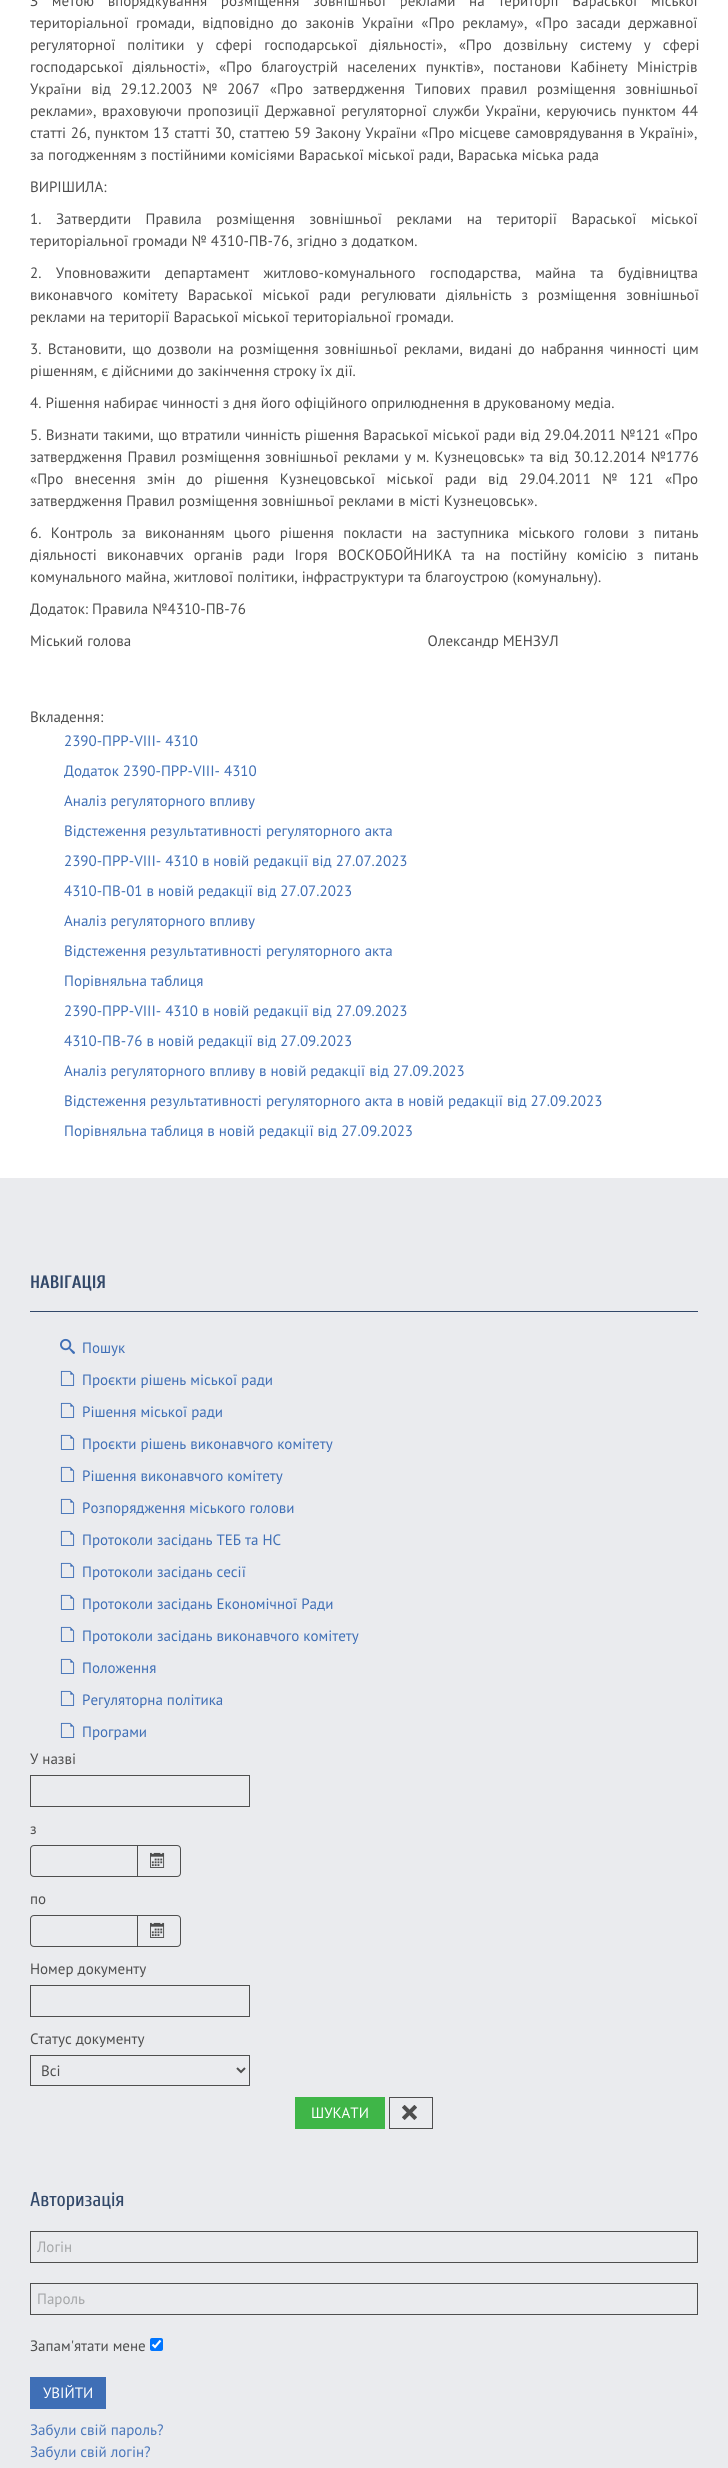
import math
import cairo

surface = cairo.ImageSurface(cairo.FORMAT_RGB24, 728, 2468)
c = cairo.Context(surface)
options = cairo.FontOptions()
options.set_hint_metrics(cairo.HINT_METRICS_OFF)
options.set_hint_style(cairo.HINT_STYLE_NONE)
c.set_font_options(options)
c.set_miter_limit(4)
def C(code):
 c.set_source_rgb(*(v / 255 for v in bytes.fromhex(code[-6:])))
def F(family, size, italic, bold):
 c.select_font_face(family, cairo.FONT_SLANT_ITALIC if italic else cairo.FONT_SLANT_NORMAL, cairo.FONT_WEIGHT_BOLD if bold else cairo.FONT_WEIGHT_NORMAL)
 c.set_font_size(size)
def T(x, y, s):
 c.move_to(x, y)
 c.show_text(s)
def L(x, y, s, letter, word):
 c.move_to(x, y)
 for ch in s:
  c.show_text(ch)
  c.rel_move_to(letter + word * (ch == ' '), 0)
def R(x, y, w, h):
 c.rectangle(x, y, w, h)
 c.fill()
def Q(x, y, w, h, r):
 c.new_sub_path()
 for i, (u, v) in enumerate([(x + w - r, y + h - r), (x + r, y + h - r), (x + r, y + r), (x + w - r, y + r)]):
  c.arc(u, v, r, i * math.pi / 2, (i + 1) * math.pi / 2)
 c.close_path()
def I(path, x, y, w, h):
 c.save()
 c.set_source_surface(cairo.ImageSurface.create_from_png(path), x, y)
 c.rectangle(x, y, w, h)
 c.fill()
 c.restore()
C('ffffff')
c.paint()
F('PT Sans',15,0,0)
C('4e4e4e')
L(30,6,'З метою впорядкування розміщення зовнішньої реклами на території Вараської міської',0,9.75)
L(30,28,'територіальної громади, відповідно до законів України «Про рекламу», «Про засади державної',0,3.75)
L(30,50,'регуляторної політики у сфері господарської діяльності», «Про дозвільну систему у сфері',0,8)
L(30,72,'господарської діяльності», «Про благоустрій населених пунктів», постанови Кабінету Міністрів',0,5.25)
L(30,94,'України від 29.12.2003 № 2067 «Про затвердження Типових правил розміщення зовнішньої',0,5.75)
L(30,116,'реклами», враховуючи пропозиції Державної регуляторної служби України, керуючись пунктом 44',0,1.75)
L(30,138,'статті 26, пунктом 13 статті 30, статтею 59 Закону України «Про місцеве самоврядування в Україні»,',0,.5)
T(30,160,'за погодженням з постійними комісіями Вараської міської ради, Вараська міська рада')
T(30,192,'ВИРІШИЛА:')
L(30,224,'1. Затвердити Правила розміщення зовнішньої реклами на території Вараської міської',0,10.5)
T(30,246,'територіальної громади № 4310-ПВ-76, згідно з додатком.')
L(30,278,'2. Уповноважити департамент житлово-комунального господарства, майна та будівництва',0,10.25)
L(30,300,'виконавчого комітету Вараської міської ради регулювати діяльність з розміщення зовнішньої',0,5.75)
T(30,322,'реклами на території Вараської міської територіальної громади.')
L(30,354,'3. Встановити, що дозволи на розміщення зовнішньої реклами, видані до набрання чинності цим',0,2.25)
T(30,376,'рішенням, є дійсними до закінчення строку їх дії.')
T(30,408,'4. Рішення набирає чинності з дня його офіційного оприлюднення в друкованому медіа.')
L(30,440,'5. Визнати такими, що втратили чинність рішення Вараської міської ради від 29.04.2011 №121 «Про',0,.4)
L(30,462,'затвердження Правил розміщення зовнішньої реклами у м. Кузнецовськ» та від 30.12.2014 №1776',0,1.25)
L(30,484,'«Про внесення змін до рішення Кузнецовської міської ради від 29.04.2011 № 121 «Про',0,7.4)
T(30,506,'затвердження Правил розміщення зовнішньої реклами в місті Кузнецовськ».')
L(30,538,'6. Контроль за виконанням цього рішення покласти на заступника міського голови з питань',0,5.25)
L(30,560,'діяльності виконавчих органів ради Ігоря ВОСКОБОЙНИКА та на постійну комісію з питань',0,6)
T(30,582,'комунального майна, житлової політики, інфраструктури та благоустрою (комунальну).')
T(30,614,'Додаток: Правила №4310-ПВ-76')
T(30,646,'Міський голова                                                                          Олександр МЕНЗУЛ')
T(30,722,'Вкладення:')
C('3f6fb6')
T(64,746,'2390-ПРР-VIII- 4310')
T(64,776,'Додаток 2390-ПРР-VIII- 4310')
T(64,806,'Аналіз регуляторного впливу')
T(64,836,'Відстеження результативності регуляторного акта')
T(64,866,'2390-ПРР-VIII- 4310 в новій редакції від 27.07.2023')
T(64,896,'4310-ПВ-01 в новій редакції від 27.07.2023')
T(64,926,'Аналіз регуляторного впливу')
T(64,956,'Відстеження результативності регуляторного акта')
T(64,986,'Порівняльна таблиця')
T(64,1016,'2390-ПРР-VIII- 4310 в новій редакції від 27.09.2023')
T(64,1046,'4310-ПВ-76 в новій редакції від 27.09.2023')
T(64,1076,'Аналіз регуляторного впливу в новій редакції від 27.09.2023')
T(64,1106,'Відстеження результативності регуляторного акта в новій редакції від 27.09.2023')
T(64,1136,'Порівняльна таблиця в новій редакції від 27.09.2023')
C('eaebee')
R(0,1178,728,1290)
C('324869')
R(30,1311,668,1)
F('Cuprum',18,0,1)
T(30,1288,'НАВІГАЦІЯ')
I('1.png',60,1338,15,16)
F('PT Sans',15,0,0)
C('3f6fb6')
T(82,1353,'Пошук')
I('2.png',60,1370,15,16)
T(82,1385,'Проєкти рішень міської ради')
I('2.png',60,1402,15,16)
T(82,1417,'Рішення міської ради')
I('2.png',60,1434,15,16)
T(82,1449,'Проєкти рішень виконавчого комітету')
I('2.png',60,1466,15,16)
T(82,1481,'Рішення виконавчого комітету')
I('2.png',60,1498,15,16)
T(82,1513,'Розпорядження міського голови')
I('2.png',60,1530,15,16)
T(82,1545,'Протоколи засідань ТЕБ та НС')
I('2.png',60,1562,15,16)
T(82,1577,'Протоколи засідань сесії')
I('2.png',60,1594,15,16)
T(82,1609,'Протоколи засідань Економічної Ради')
I('2.png',60,1626,15,16)
T(82,1641,'Протоколи засідань виконавчого комітету')
I('2.png',60,1658,15,16)
T(82,1673,'Положення')
I('2.png',60,1690,15,16)
T(82,1705,'Регуляторна політика')
I('2.png',60,1722,15,16)
T(82,1737,'Програми')
C('4e4e4e')
T(30,1764,'У назві')
c.rectangle(30.5,1775.5,219,31)
c.set_line_width(1)
c.stroke()
T(30,1834,'з')
c.new_path()
c.move_to(34,1845.5)
c.line_to(137.5,1845.5)
c.line_to(137.5,1876.5)
c.line_to(34,1876.5)
c.curve_to(32,1876.5,30.5,1875,30.5,1873)
c.line_to(30.5,1849)
c.curve_to(30.5,1847,32,1845.5,34,1845.5)
c.close_path()
c.stroke()
c.new_path()
c.move_to(137.5,1845.5)
c.line_to(177,1845.5)
c.curve_to(179,1845.5,180.5,1847,180.5,1849)
c.line_to(180.5,1873)
c.curve_to(180.5,1875,179,1876.5,177,1876.5)
c.line_to(137.5,1876.5)
c.close_path()
c.stroke()
I('3.png',150,1852,15,16)
T(30,1904,'по')
c.new_path()
c.move_to(34,1915.5)
c.line_to(137.5,1915.5)
c.line_to(137.5,1946.5)
c.line_to(34,1946.5)
c.curve_to(32,1946.5,30.5,1945,30.5,1943)
c.line_to(30.5,1919)
c.curve_to(30.5,1917,32,1915.5,34,1915.5)
c.close_path()
c.stroke()
c.new_path()
c.move_to(137.5,1915.5)
c.line_to(177,1915.5)
c.curve_to(179,1915.5,180.5,1917,180.5,1919)
c.line_to(180.5,1943)
c.curve_to(180.5,1945,179,1946.5,177,1946.5)
c.line_to(137.5,1946.5)
c.close_path()
c.stroke()
I('3.png',150,1922,15,16)
T(30,1974,'Номер документу')
c.rectangle(30.5,1985.5,219,31)
c.stroke()
T(30,2044,'Статус документу')
c.rectangle(30.5,2055.5,219,30)
c.stroke()
c.new_path()
c.move_to(237,2068)
c.line_to(241,2072)
c.line_to(245,2068)
c.set_line_width(2)
c.stroke()
T(41,2076,'Всі')
C('3fb648')
R(295,2097,90,32)
C('ffffff')
T(311,2118,'ШУКАТИ')
c.rectangle(389.5,2097.5,43,31)
C('4e4e4e')
c.set_line_width(1)
c.stroke()
I('4.png',402,2105,15,15)
F('Cuprum',20,0,0)
C('324869')
T(30,2206,'Авторизація')
c.rectangle(30.5,2231.5,667,31)
C('4e4e4e')
c.stroke()
F('PT Sans',15,0,0)
C('a4a6a8')
T(37,2252,'Логін')
c.rectangle(30.5,2283.5,667,31)
C('4e4e4e')
c.stroke()
C('a4a6a8')
T(37,2304,'Пароль')
C('4e4e4e')
T(30,2351,'Запам\'ятати мене')
C('0075ff')
Q(150,2338,13,13,2)
c.fill()
c.new_path()
c.move_to(152.5,2344.5)
c.line_to(155,2347)
c.line_to(160.5,2340.5)
C('ffffff')
c.set_line_width(2.1)
c.stroke()
C('3f6fb6')
R(30,2377,76,32)
C('ffffff')
T(43,2398,'УВІЙТИ')
C('4976ba')
T(30,2435,'Забули свій пароль?')
T(30,2457,'Забули свій логін?')
surface.write_to_png('o.png')
